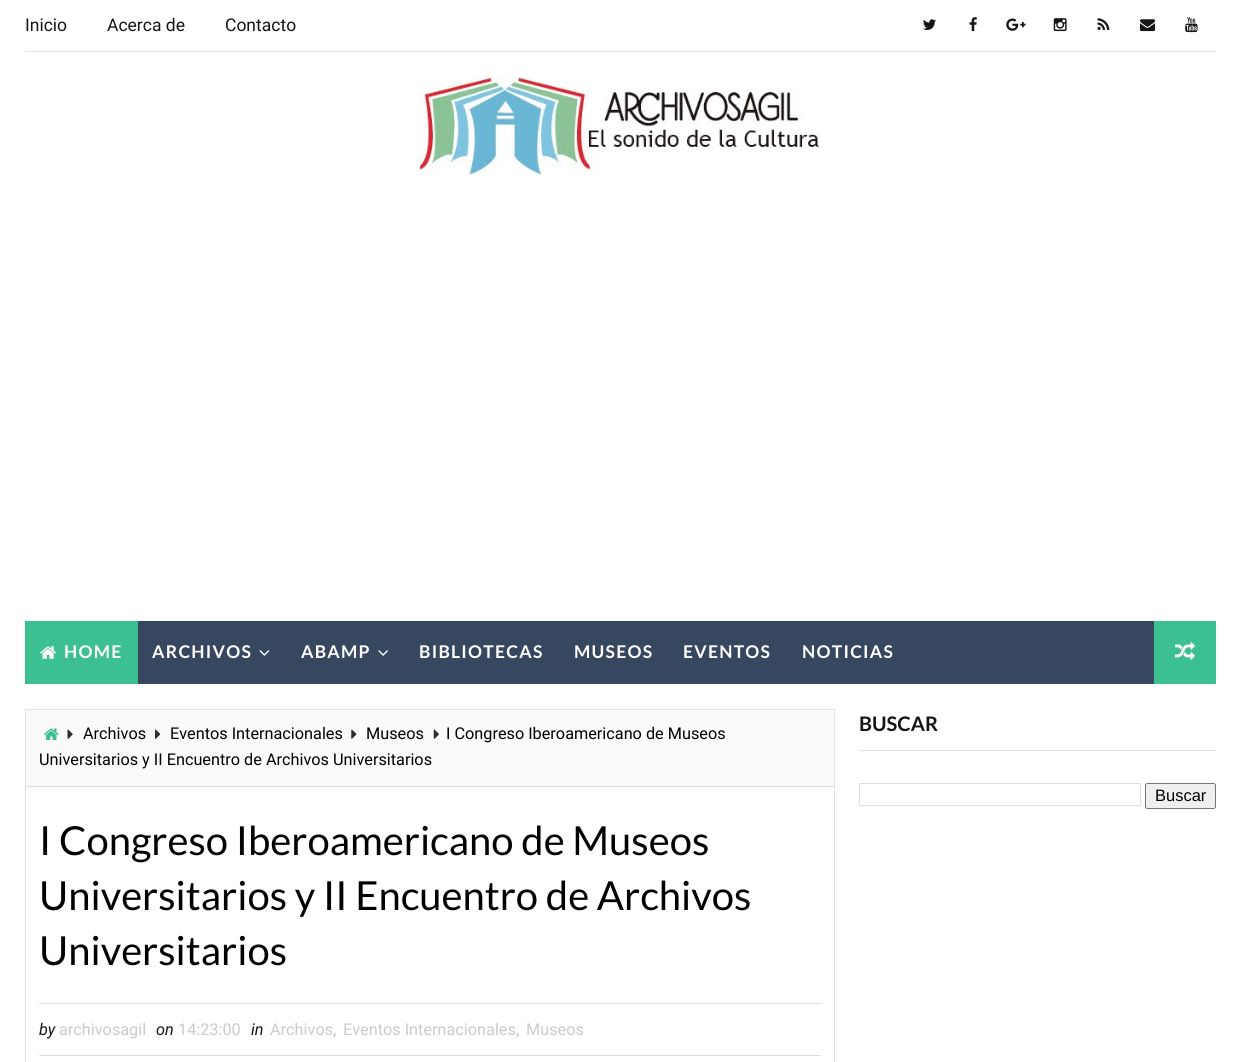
import math
import cairo

surface = cairo.ImageSurface(cairo.FORMAT_RGB24, 1241, 1062)
c = cairo.Context(surface)
options = cairo.FontOptions()
options.set_hint_metrics(cairo.HINT_METRICS_OFF)
options.set_hint_style(cairo.HINT_STYLE_NONE)
c.set_font_options(options)
c.set_miter_limit(4)
def C(code):
 c.set_source_rgb(*(v / 255 for v in bytes.fromhex(code[-6:])))
def F(family, size, italic, bold):
 c.select_font_face(family, cairo.FONT_SLANT_ITALIC if italic else cairo.FONT_SLANT_NORMAL, cairo.FONT_WEIGHT_BOLD if bold else cairo.FONT_WEIGHT_NORMAL)
 c.set_font_size(size)
def T(x, y, s):
 c.move_to(x, y)
 c.show_text(s)
def L(x, y, s, letter, word):
 c.move_to(x, y)
 for ch in s:
  c.show_text(ch)
  c.rel_move_to(letter + word * (ch == ' '), 0)
def R(x, y, w, h):
 c.rectangle(x, y, w, h)
 c.fill()
def Q(x, y, w, h, r):
 c.new_sub_path()
 for i, (u, v) in enumerate([(x + w - r, y + h - r), (x + r, y + h - r), (x + r, y + r), (x + w - r, y + r)]):
  c.arc(u, v, r, i * math.pi / 2, (i + 1) * math.pi / 2)
 c.close_path()
def I(path, x, y, w, h):
 c.save()
 c.set_source_surface(cairo.ImageSurface.create_from_png(path), x, y)
 c.rectangle(x, y, w, h)
 c.fill()
 c.restore()
C('ffffff')
c.paint()
C('e0e0e0')
R(25,51,1191,1)
F('Roboto',17.5,0,0)
C('151515')
T(25,31,'Inicio')
T(107,31,'Acerca de')
T(225,31,'Contacto')
I('1.png',923,19,13,11)
I('2.png',969,17,8,15)
I('3.png',1006,18,20,13)
I('4.png',1053,18,14,14)
I('5.png',1097,18,13,12)
I('6.png',1140,19,15,13)
I('7.png',1185,17,13,16)
I('8.png',420,77,400,98)
C('374760')
R(138,621,1016,63)
C('3cc091')
R(25,621,113,63)
I('9.png',40,646,16,13)
F('Lato',17.5,0,1)
C('ffffff')
L(64,658,'HOME',1.25,0)
L(152,658,'ARCHIVOS',1.25,0)
I('10.png',259,650,11,6)
L(301,658,'ABAMP',1.25,0)
I('11.png',378,650,10,6)
L(419,658,'BIBLIOTECAS',1.25,0)
L(574,658,'MUSEOS',1.25,0)
L(683,658,'EVENTOS',1.25,0)
L(802,658,'NOTICIAS',1.25,0)
C('3cc091')
R(1154,621,62,63)
I('12.png',1175,642,20,18)
c.rectangle(25.5,709.5,809,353)
C('e0e0e0')
c.set_line_width(1)
c.stroke()
C('fafafa')
R(26,710,808,78)
C('dcdcdc')
R(26,786,808,1)
I('13.png',44,728,15,12)
I('14.png',67,729,6,10)
F('Roboto',16.25,0,0)
C('010101')
T(83,739,'Archivos')
I('15.png',155,729,6,10)
T(170,739,'Eventos Internacionales')
I('16.png',351,729,6,10)
T(366,739,'Museos')
I('17.png',433,729,6,10)
T(446,739,'I Congreso Iberoamericano de Museos')
T(39,765,'Universitarios y II Encuentro de Archivos Universitarios')
F('Lato',40,0,0)
T(39,855,'I Congreso Iberoamericano de Museos')
T(39,910,'Universitarios y II Encuentro de Archivos')
T(39,965,'Universitarios')
C('e0e0e0')
R(39,1003,782,1)
R(39,1055,782,1)
F('Roboto',16.25,1,0)
C('151515')
T(39,1035,'by')
F('Roboto',16.25,0,0)
C('cbcbcb')
T(59,1035,'archivosagil')
F('Roboto',16.25,1,0)
C('151515')
T(156,1035,'on')
F('Roboto',16.25,0,0)
C('cbcbcb')
T(178,1035,'14:23:00')
F('Roboto',16.25,1,0)
C('151515')
T(251,1035,'in')
F('Roboto',16.25,0,0)
C('cbcbcb')
T(270,1035,'Archivos')
C('bdbdbd')
T(333,1035,',')
C('cbcbcb')
T(343,1035,'Eventos Internacionales')
C('bdbdbd')
T(516,1035,',')
C('cbcbcb')
T(526,1035,'Museos')
C('e1e1e1')
R(859,750,357,1)
F('Lato',20,0,1)
C('151515')
T(859,731,'BUSCAR')
c.rectangle(859.5,783.5,281,22)
C('dddddd')
c.stroke()
C('efefef')
Q(1145.5,783.5,70,25,2)
c.fill_preserve()
C('767676')
c.stroke()
F('Liberation Sans',16.5,0,0)
C('010101')
T(1155,801,'Buscar')
surface.write_to_png('o.png')
